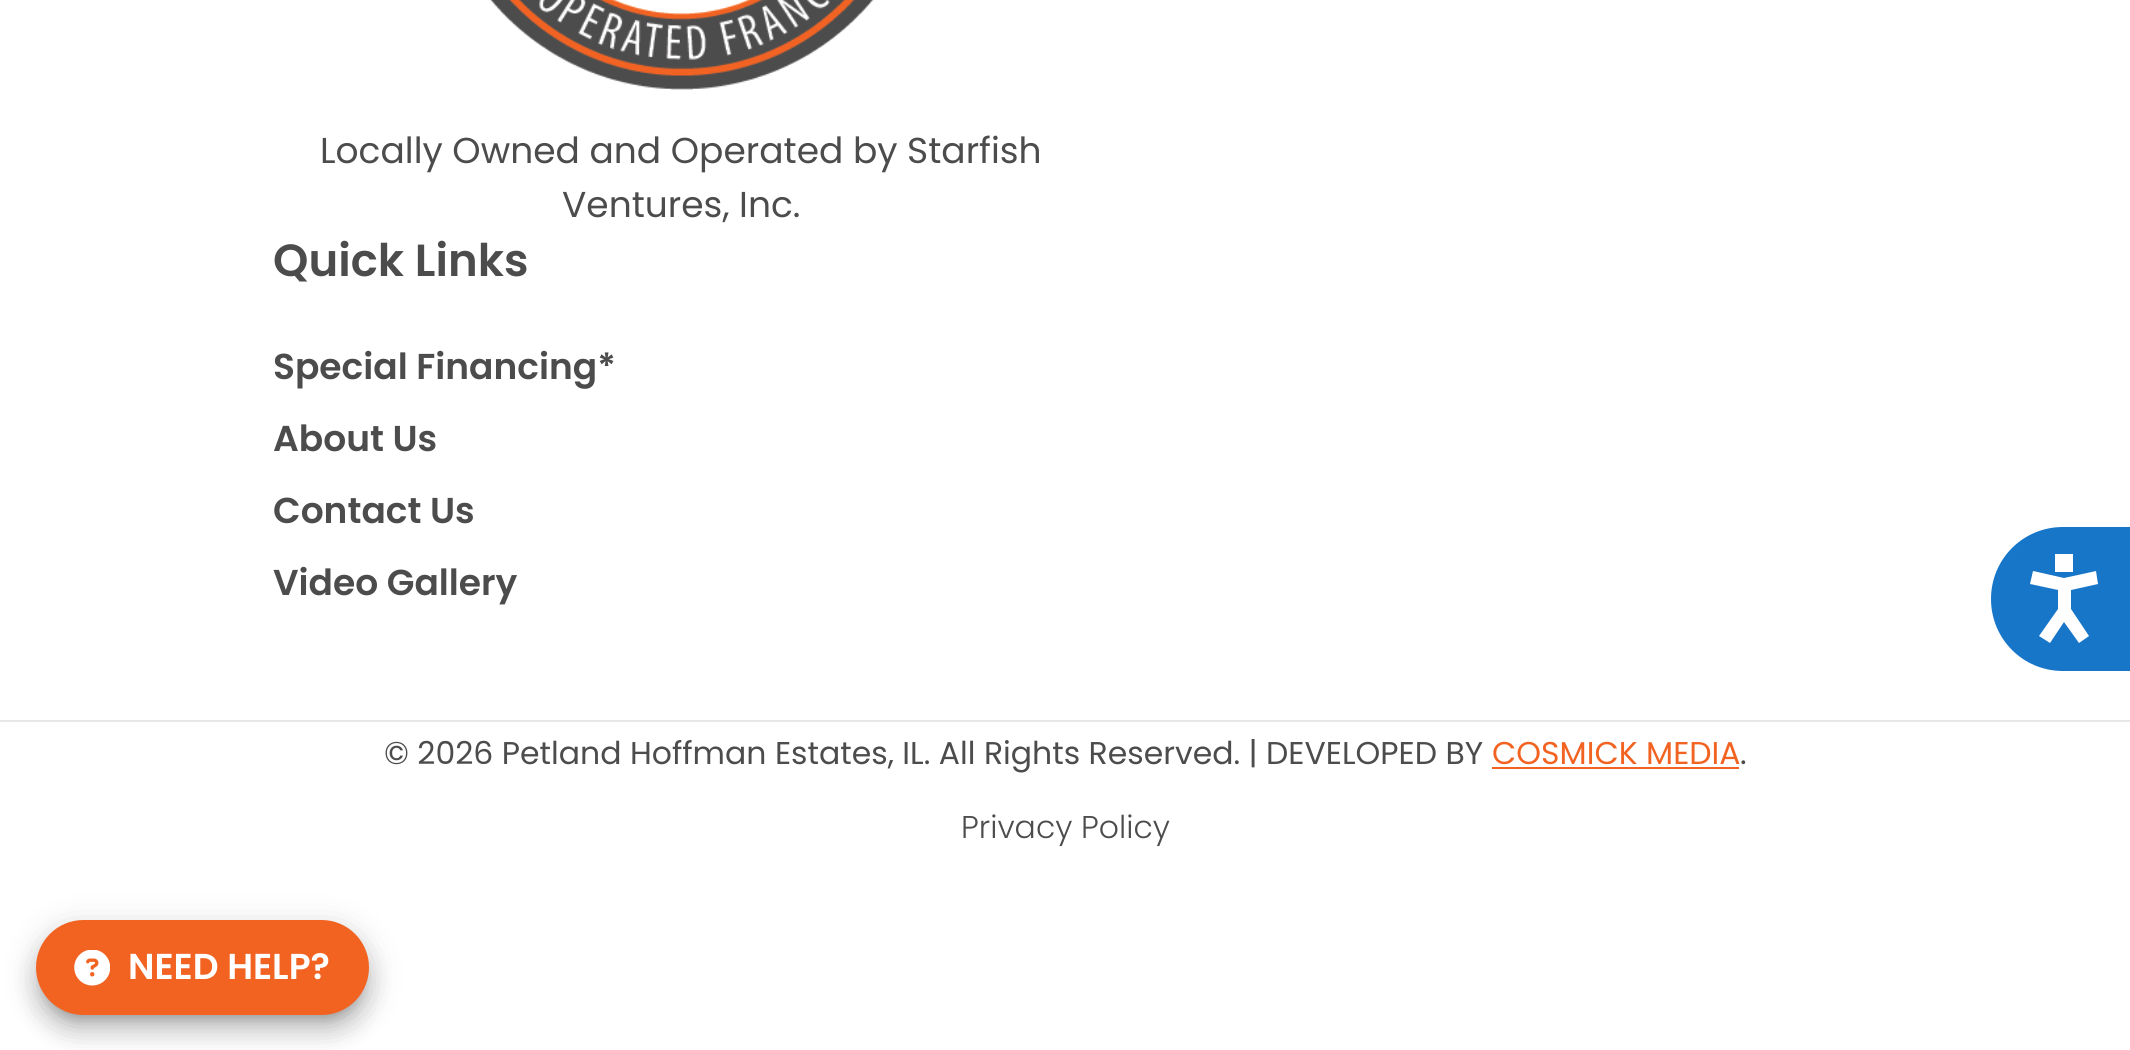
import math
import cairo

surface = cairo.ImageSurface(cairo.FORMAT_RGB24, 2130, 1050)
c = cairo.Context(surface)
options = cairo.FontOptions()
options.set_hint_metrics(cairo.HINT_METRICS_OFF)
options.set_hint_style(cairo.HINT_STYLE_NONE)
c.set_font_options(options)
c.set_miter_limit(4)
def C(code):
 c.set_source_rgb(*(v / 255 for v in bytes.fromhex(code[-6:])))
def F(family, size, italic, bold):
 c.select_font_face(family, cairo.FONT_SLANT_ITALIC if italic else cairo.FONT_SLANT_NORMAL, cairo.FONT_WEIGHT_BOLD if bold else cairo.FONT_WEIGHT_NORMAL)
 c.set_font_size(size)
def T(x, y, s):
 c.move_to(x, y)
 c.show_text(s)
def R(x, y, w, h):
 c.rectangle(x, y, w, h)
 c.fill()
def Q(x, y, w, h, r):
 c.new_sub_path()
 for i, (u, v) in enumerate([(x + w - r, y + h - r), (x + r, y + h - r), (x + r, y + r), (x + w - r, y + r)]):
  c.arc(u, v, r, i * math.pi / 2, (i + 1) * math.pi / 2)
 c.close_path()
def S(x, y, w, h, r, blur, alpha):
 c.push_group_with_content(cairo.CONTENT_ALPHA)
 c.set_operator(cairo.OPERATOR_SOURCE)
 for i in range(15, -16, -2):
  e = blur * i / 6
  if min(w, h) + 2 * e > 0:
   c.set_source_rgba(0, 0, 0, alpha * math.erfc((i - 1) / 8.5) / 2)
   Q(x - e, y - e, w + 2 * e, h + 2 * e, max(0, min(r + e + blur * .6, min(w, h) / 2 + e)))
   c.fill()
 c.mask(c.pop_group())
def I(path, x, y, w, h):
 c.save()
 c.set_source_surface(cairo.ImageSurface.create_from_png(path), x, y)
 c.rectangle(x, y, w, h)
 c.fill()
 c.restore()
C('ffffff')
c.paint()
I('1.png',490,0,384,90)
F('Poppins',36,0,0)
C('4c4c4c')
T(320,163,'Locally Owned and Operated by Starfish')
T(562,217,'Ventures, Inc.')
F('Poppins SemiBold',45,0,0)
T(273,276,'Quick Links')
F('Poppins SemiBold',36,0,0)
T(273,379,'Special Financing*')
T(273,451,'About Us')
T(273,523,'Contact Us')
T(273,595,'Video Gallery')
C('e7e7e7')
R(0,720,2130,2)
F('Poppins',31.5,0,0)
C('4c4c4c')
T(384,764,'© 2026 Petland Hoffman Estates, IL. All Rights Reserved. | DEVELOPED BY')
C('f26322')
T(1492,764,'COSMICK MEDIA')
R(1492,767,247,2)
C('4c4c4c')
T(1740,764,'.')
F('Poppins Light',31.5,0,0)
T(961,838,'Privacy Policy')
C('1876c9')
c.new_path()
c.move_to(2063,527)
c.line_to(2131,527)
c.line_to(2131,671)
c.line_to(2063,671)
c.curve_to(2023,671,1991,639,1991,599)
c.curve_to(1991,559,2023,527,2063,527)
c.close_path()
c.fill()
c.save()
c.rectangle(2018,554,90,90)
c.clip()
C('ffffff')
c.new_path()
c.move_to(2058,590)
c.line_to(2030,584)
c.line_to(2033,571)
c.line_to(2064,578)
c.line_to(2096,571)
c.line_to(2098,584)
c.line_to(2071,590)
c.line_to(2071,609)
c.line_to(2089,636)
c.line_to(2079,643)
c.line_to(2064,622)
c.line_to(2050,643)
c.line_to(2039,636)
c.line_to(2058,609)
c.close_path()
c.move_to(2055,553)
c.line_to(2073,553)
c.line_to(2073,572)
c.line_to(2055,572)
c.close_path()
c.fill()
c.restore()
C('000000')
S(32,923,342,103,51.5,16,.12)
S(34,936,337,99,49.5,11,.14)
S(43,938,319,81,40.5,5.5,.2)
C('f26322')
Q(37,921,331,93,46.5)
c.fill_preserve()
c.stroke()
I('2.png',74,950,36,36)
F('Poppins SemiBold',36,0,0)
C('ffffff')
T(128,979,'NEED HELP?')
surface.write_to_png('o.png')
